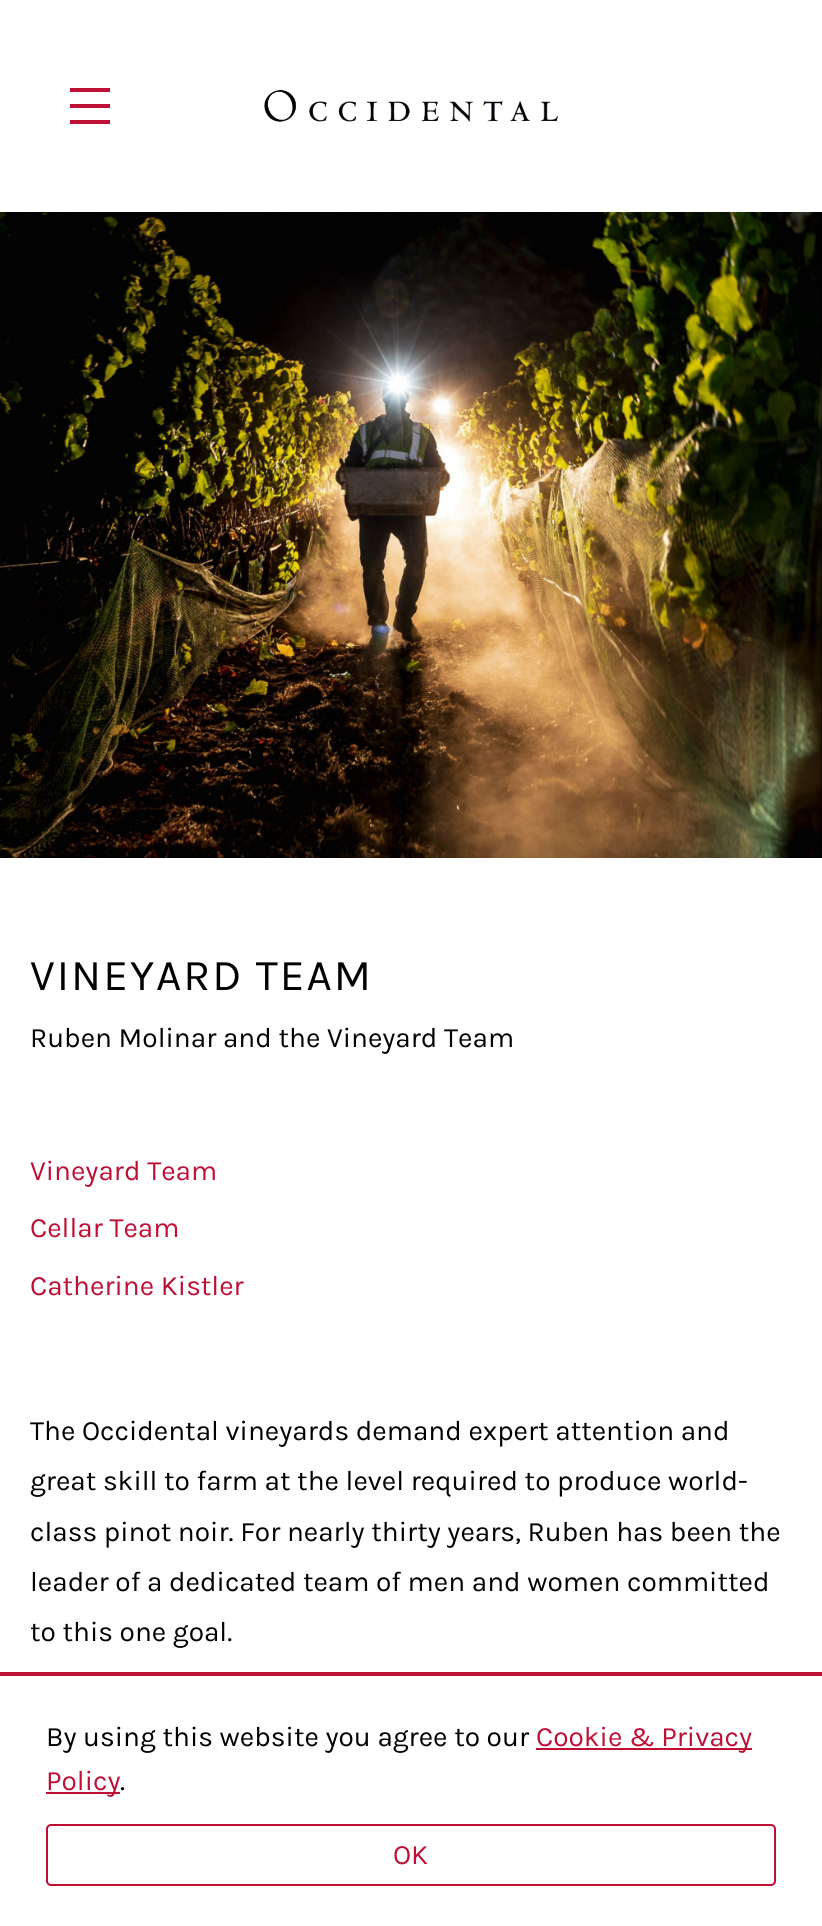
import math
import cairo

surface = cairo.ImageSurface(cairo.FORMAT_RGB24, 822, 1926)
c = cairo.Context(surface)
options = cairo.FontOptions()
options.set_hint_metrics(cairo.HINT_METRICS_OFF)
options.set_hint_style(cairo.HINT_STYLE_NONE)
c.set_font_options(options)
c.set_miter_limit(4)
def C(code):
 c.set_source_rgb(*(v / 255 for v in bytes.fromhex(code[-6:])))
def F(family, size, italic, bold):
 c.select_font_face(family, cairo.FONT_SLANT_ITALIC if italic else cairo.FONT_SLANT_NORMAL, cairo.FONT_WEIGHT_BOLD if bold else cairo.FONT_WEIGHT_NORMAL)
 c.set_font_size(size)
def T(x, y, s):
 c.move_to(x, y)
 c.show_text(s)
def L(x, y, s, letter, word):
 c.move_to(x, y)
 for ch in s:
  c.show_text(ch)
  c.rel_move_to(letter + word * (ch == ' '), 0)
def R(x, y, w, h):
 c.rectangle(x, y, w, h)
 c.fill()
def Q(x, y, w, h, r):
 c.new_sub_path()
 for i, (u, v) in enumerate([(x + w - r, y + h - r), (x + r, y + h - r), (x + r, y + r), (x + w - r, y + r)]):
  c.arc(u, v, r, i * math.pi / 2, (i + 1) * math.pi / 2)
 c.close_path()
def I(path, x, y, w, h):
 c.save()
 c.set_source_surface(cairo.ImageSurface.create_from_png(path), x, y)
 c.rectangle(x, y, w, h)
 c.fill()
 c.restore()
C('ffffff')
c.paint()
C('be0f34')
R(70,88,40,4)
R(70,104,40,4)
R(70,120,40,4)
I('1.png',264,89,294,33)
I('2.png',0,212,822,646)
F('Karla',44,0,0)
C('000000')
L(30,990,'VINEYARD TEAM',2,0)
F('Karla',28,0,0)
T(30,1047,'Ruben Molinar and the Vineyard Team')
C('be0f34')
T(30,1180,'Vineyard Team')
T(30,1237,'Cellar Team')
T(30,1295,'Catherine Kistler')
C('000000')
T(30,1440,'The Occidental vineyards demand expert attention and')
T(30,1490,'great skill to farm at the level required to produce world-')
T(30,1541,'class pinot noir. For nearly thirty years, Ruben has been the')
T(30,1591,'leader of a dedicated team of men and women committed')
T(30,1641,'to this one goal.')
C('be0f34')
R(0,1672,822,4)
C('000000')
T(46,1746,'By using this website you agree to our')
C('be0f34')
R(536,1748,216,2)
T(536,1746,'Cookie & Privacy')
R(46,1792,74,2)
T(46,1790,'Policy')
C('000000')
T(120,1790,'.')
Q(47,1825,728,60,4)
C('be0f34')
c.stroke()
T(393,1864,'OK')
surface.write_to_png('o.png')
